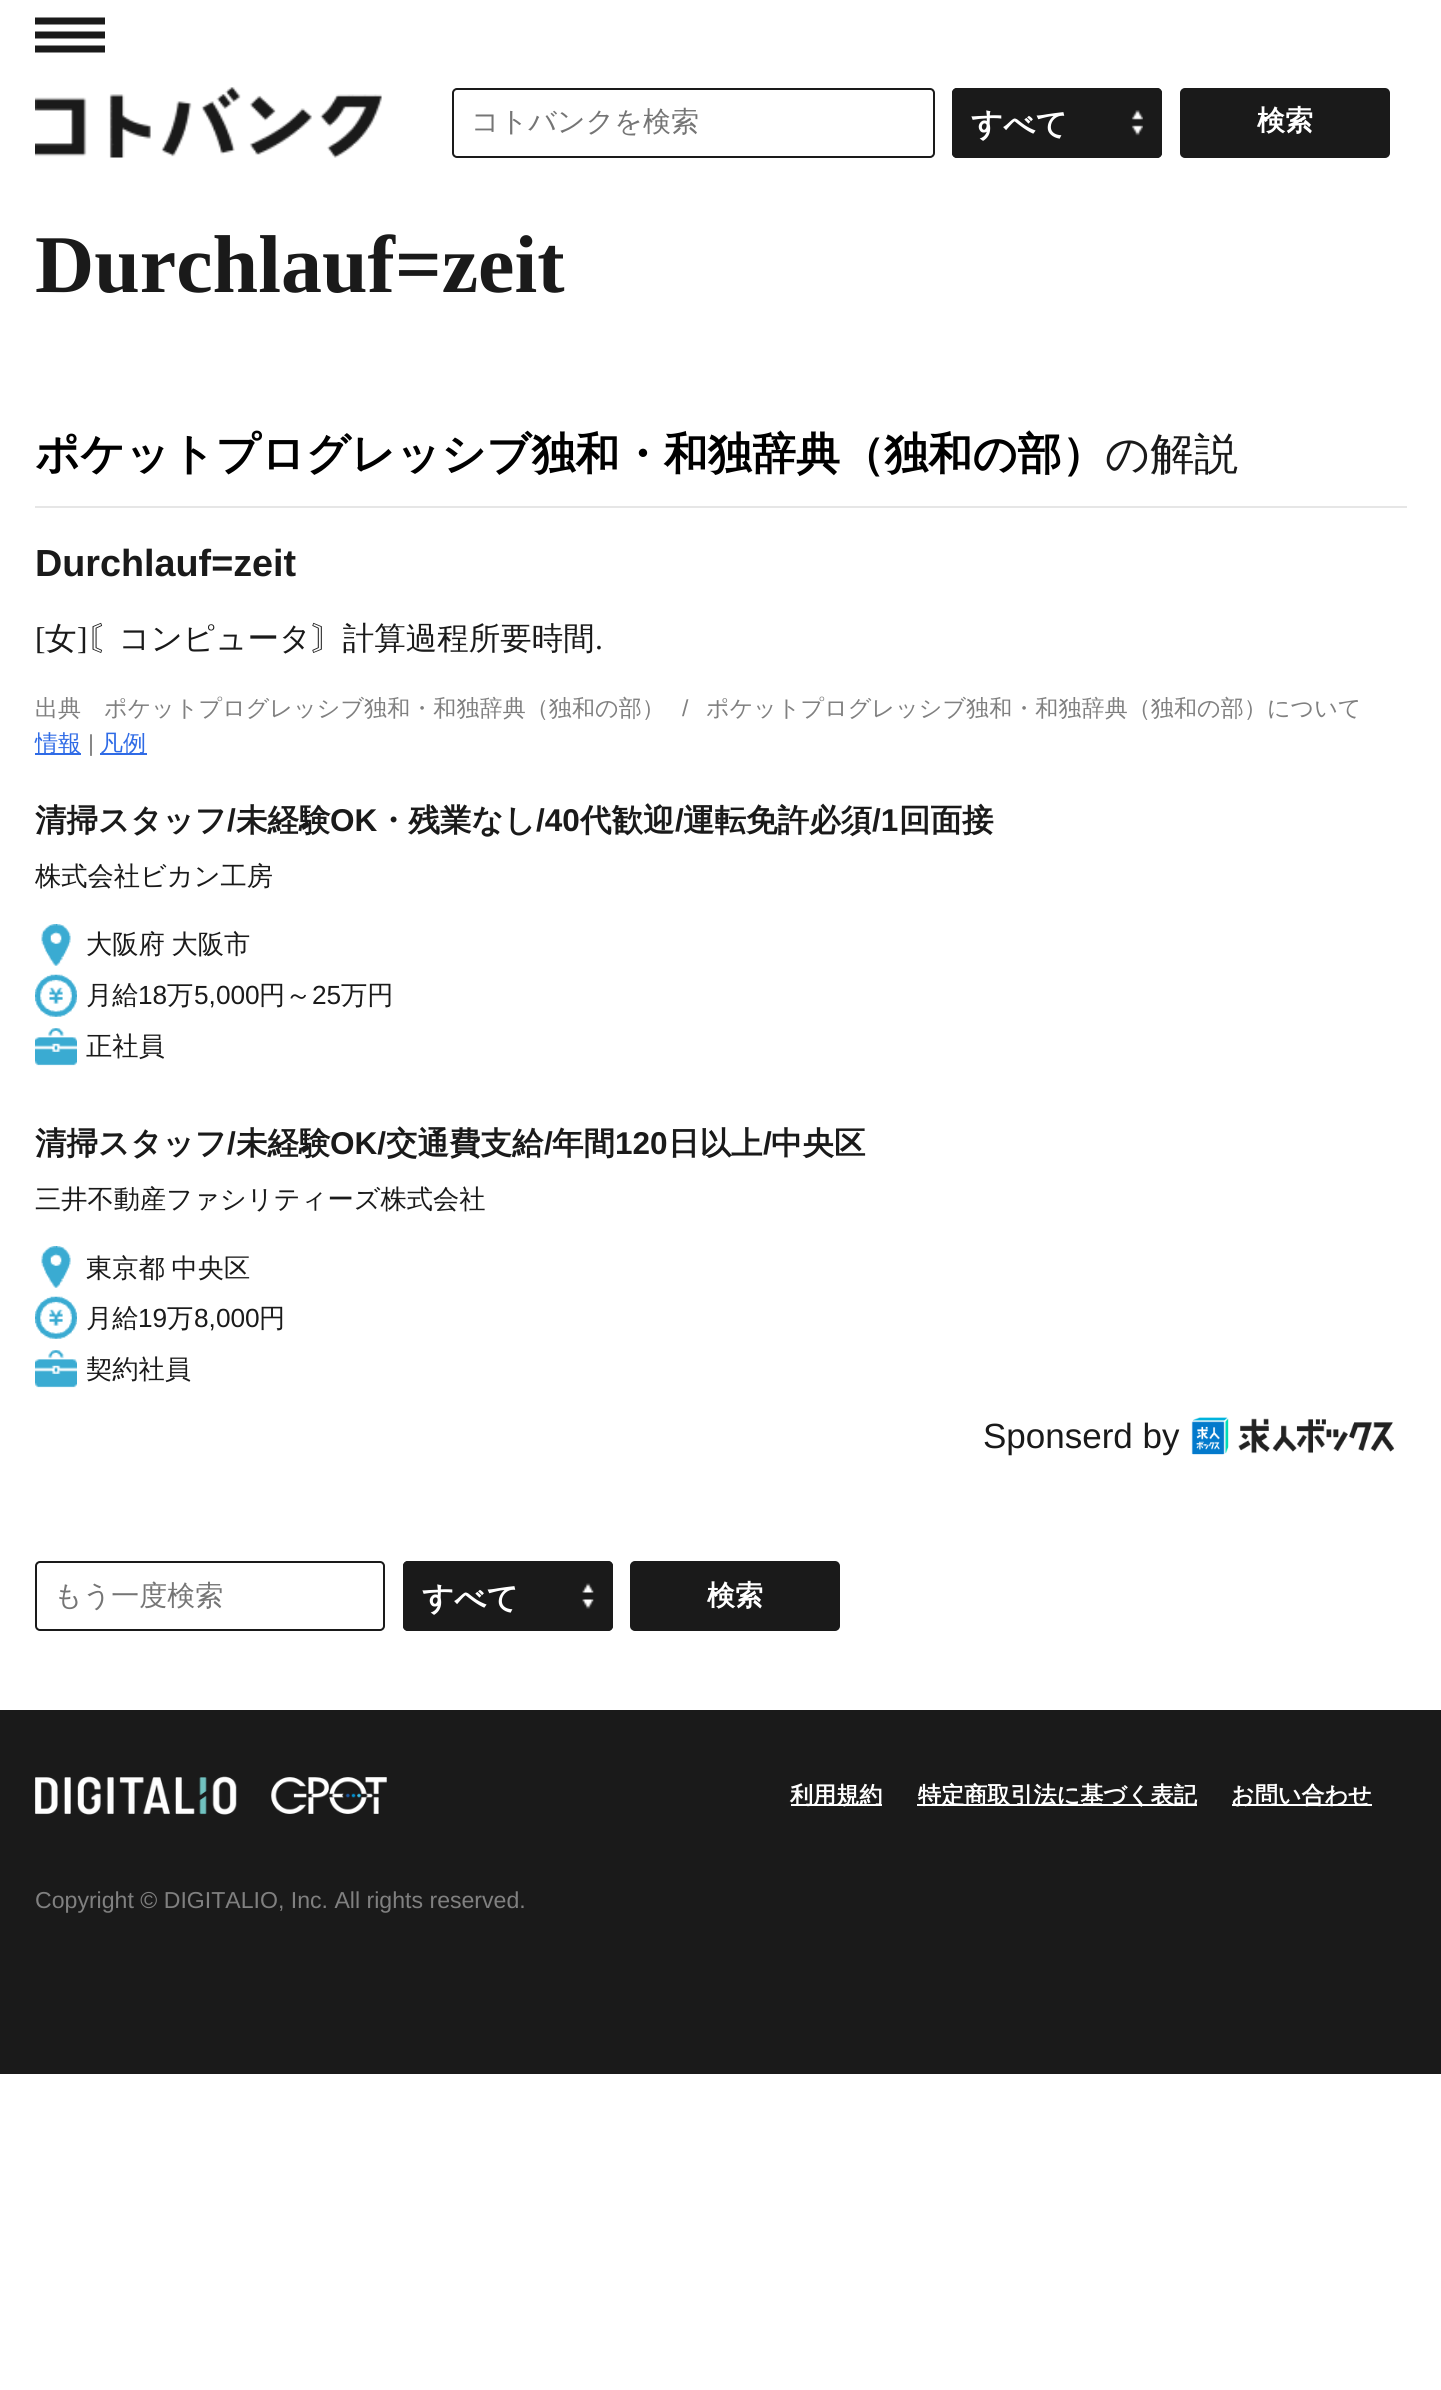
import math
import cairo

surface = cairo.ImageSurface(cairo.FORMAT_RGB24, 1441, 2390)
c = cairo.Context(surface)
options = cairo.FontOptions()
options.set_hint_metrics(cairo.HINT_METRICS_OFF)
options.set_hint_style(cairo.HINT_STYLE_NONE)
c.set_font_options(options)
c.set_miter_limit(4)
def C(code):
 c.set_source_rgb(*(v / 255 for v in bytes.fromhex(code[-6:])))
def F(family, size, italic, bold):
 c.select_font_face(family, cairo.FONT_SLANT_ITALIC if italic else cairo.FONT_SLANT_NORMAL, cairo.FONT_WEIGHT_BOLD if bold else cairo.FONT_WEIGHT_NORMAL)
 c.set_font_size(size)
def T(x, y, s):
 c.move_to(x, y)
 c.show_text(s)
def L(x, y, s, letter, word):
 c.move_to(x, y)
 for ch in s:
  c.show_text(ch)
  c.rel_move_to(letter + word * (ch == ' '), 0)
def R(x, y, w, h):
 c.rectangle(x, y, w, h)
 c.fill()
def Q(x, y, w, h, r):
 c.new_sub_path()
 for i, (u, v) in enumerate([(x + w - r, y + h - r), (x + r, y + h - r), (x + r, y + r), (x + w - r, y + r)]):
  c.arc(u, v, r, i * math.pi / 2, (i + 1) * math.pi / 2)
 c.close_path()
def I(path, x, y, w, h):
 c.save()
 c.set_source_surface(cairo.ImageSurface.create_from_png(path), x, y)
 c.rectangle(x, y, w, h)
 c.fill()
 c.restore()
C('ffffff')
c.paint()
I('1.png',35,17,70,36)
I('2.png',35,87,347,71)
Q(453,89,481,68,4)
C('1a1a1a')
c.stroke()
F('WenQuanYi Zen Hei Medium',28,0,0)
C('757575')
T(471,131,'コトバンクを検索')
C('1a1a1a')
Q(952,88,210,70,5)
c.fill()
I('3.png',1131,110,12,26)
Q(953,89,208,68,4)
c.stroke()
F('WenQuanYi Zen Hei',31.5,0,1)
C('ffffff')
T(971,135,'すべて')
C('1a1a1a')
Q(1181,89,208,68,4)
c.fill_preserve()
c.stroke()
F('WenQuanYi Zen Hei',28,0,1)
C('ffffff')
T(1257,130,'検索')
F('Liberation Serif',82,0,1)
C('1a1a1a')
T(35,292,'Durchlauf=zeit')
C('e6e6e6')
R(35,506,1372,2)
F('WenQuanYi Zen Hei',44.1,0,1)
C('000000')
T(35,469,'ポケットプログレッシブ独和・和独辞典（独和の部）')
F('WenQuanYi Zen Hei Medium',44.1,0,0)
C('1a1a1a')
T(1105,469,'の解説')
F('Liberation Sans',37.75,0,1)
T(35,576,'Durchlauf=zeit')
F('Liberation Serif',31.5,0,0)
T(35,649,'[')
F('WenQuanYi Zen Hei Medium',31.5,0,0)
T(45,649,'女')
F('Liberation Serif',31.5,0,0)
T(77,649,']')
F('WenQuanYi Zen Hei Medium',31.5,0,0)
T(87,649,'〘コンピュータ〙計算過程所要時間')
F('Liberation Serif',31.5,0,0)
T(595,649,'.')
F('Liberation Sans',23.1,0,0)
C('808080')
T(682,716,'/')
F('WenQuanYi Zen Hei Medium',23.1,0,0)
T(706,716,'ポケットプログレッシブ独和・和独辞典（独和の部）について')
C('2f6be6')
R(35,753,46,2)
T(35,751,'情報')
F('Liberation Sans',23.1,0,0)
C('808080')
T(88,751,'|')
C('2f6be6')
R(100,753,47,2)
F('WenQuanYi Zen Hei Medium',23.1,0,0)
T(100,751,'凡例')
C('808080')
T(35,716,'出典')
T(104,716,'ポケットプログレッシブ独和・和独辞典（独和の部）')
F('WenQuanYi Zen Hei',31.5,0,1)
C('1a1a1a')
T(35,831,'清掃スタッフ')
F('Liberation Sans',31.5,0,1)
T(227,831,'/')
F('WenQuanYi Zen Hei',31.5,0,1)
T(236,831,'未経験')
F('Liberation Sans',31.5,0,1)
T(330,831,'OK')
F('WenQuanYi Zen Hei',31.5,0,1)
T(377,831,'・残業なし')
F('Liberation Sans',31.5,0,1)
T(536,831,'/40')
F('WenQuanYi Zen Hei',31.5,0,1)
T(580,831,'代歓迎')
F('Liberation Sans',31.5,0,1)
T(675,831,'/')
F('WenQuanYi Zen Hei',31.5,0,1)
T(683,831,'運転免許必須')
F('Liberation Sans',31.5,0,1)
T(872,831,'/1')
F('WenQuanYi Zen Hei',31.5,0,1)
T(899,831,'回面接')
F('WenQuanYi Zen Hei Medium',26.25,0,0)
T(35,885,'株式会社ビカン工房')
I('4.png',41,924,30,42)
L(86,953,'大阪府 大阪市',0,-1)
I('5.png',35,974,42,43)
T(86,1004,'月給')
F('Liberation Sans',26.25,0,0)
T(138,1004,'18')
F('WenQuanYi Zen Hei Medium',26.25,0,0)
T(167,1004,'万')
F('Liberation Sans',26.25,0,0)
T(194,1004,'5,000')
F('WenQuanYi Zen Hei Medium',26.25,0,0)
T(259,1004,'円～')
F('Liberation Sans',26.25,0,0)
T(312,1004,'25')
F('WenQuanYi Zen Hei Medium',26.25,0,0)
T(341,1004,'万円')
I('6.png',35,1028,42,38)
T(86,1055,'正社員')
F('WenQuanYi Zen Hei',31.5,0,1)
T(35,1154,'清掃スタッフ')
F('Liberation Sans',31.5,0,1)
T(227,1154,'/')
F('WenQuanYi Zen Hei',31.5,0,1)
T(236,1154,'未経験')
F('Liberation Sans',31.5,0,1)
T(330,1154,'OK/')
F('WenQuanYi Zen Hei',31.5,0,1)
T(386,1154,'交通費支給')
F('Liberation Sans',31.5,0,1)
T(544,1154,'/')
F('WenQuanYi Zen Hei',31.5,0,1)
T(552,1154,'年間')
F('Liberation Sans',31.5,0,1)
T(615,1154,'120')
F('WenQuanYi Zen Hei',31.5,0,1)
T(668,1154,'日以上')
F('Liberation Sans',31.5,0,1)
T(763,1154,'/')
F('WenQuanYi Zen Hei',31.5,0,1)
T(771,1154,'中央区')
F('WenQuanYi Zen Hei Medium',26.25,0,0)
T(35,1208,'三井不動産ファシリティーズ株式会社')
I('4.png',41,1246,30,42)
L(86,1277,'東京都 中央区',0,-1)
I('5.png',35,1296,42,43)
T(86,1327,'月給')
F('Liberation Sans',26.25,0,0)
T(138,1327,'19')
F('WenQuanYi Zen Hei Medium',26.25,0,0)
T(167,1327,'万')
F('Liberation Sans',26.25,0,0)
T(194,1327,'8,000')
F('WenQuanYi Zen Hei Medium',26.25,0,0)
T(259,1327,'円')
I('6.png',35,1350,42,38)
T(86,1378,'契約社員')
F('Liberation Sans',35,0,0)
T(983,1448,'Sponserd by')
I('7.png',1179,1417,216,38)
Q(36,1562,348,68,4)
c.stroke()
F('WenQuanYi Zen Hei Medium',28,0,0)
C('757575')
T(54,1605,'もう一度検索')
C('1a1a1a')
Q(403,1561,210,70,5)
c.fill()
I('8.png',582,1583,12,26)
Q(404,1562,208,68,4)
c.stroke()
F('WenQuanYi Zen Hei',31.5,0,1)
C('ffffff')
T(422,1609,'すべて')
C('1a1a1a')
Q(631,1562,208,68,4)
c.fill_preserve()
c.stroke()
F('WenQuanYi Zen Hei',28,0,1)
C('ffffff')
T(707,1605,'検索')
C('1a1a1a')
R(0,1710,1441,364)
I('9.png',35,1776,202,39)
I('10.png',271,1777,116,37)
C('ffffff')
R(791,1804,91,2)
F('WenQuanYi Zen Hei',23.1,0,1)
T(790,1803,'利用規約')
R(917,1804,280,2)
T(918,1803,'特定商取引法に基づく表記')
R(1232,1804,140,2)
T(1231,1803,'お問い合わせ')
F('Liberation Sans',23.1,0,0)
C('808080')
T(35,1908,'Copyright © DIGITALIO, Inc. All rights reserved.')
surface.write_to_png('o.png')
